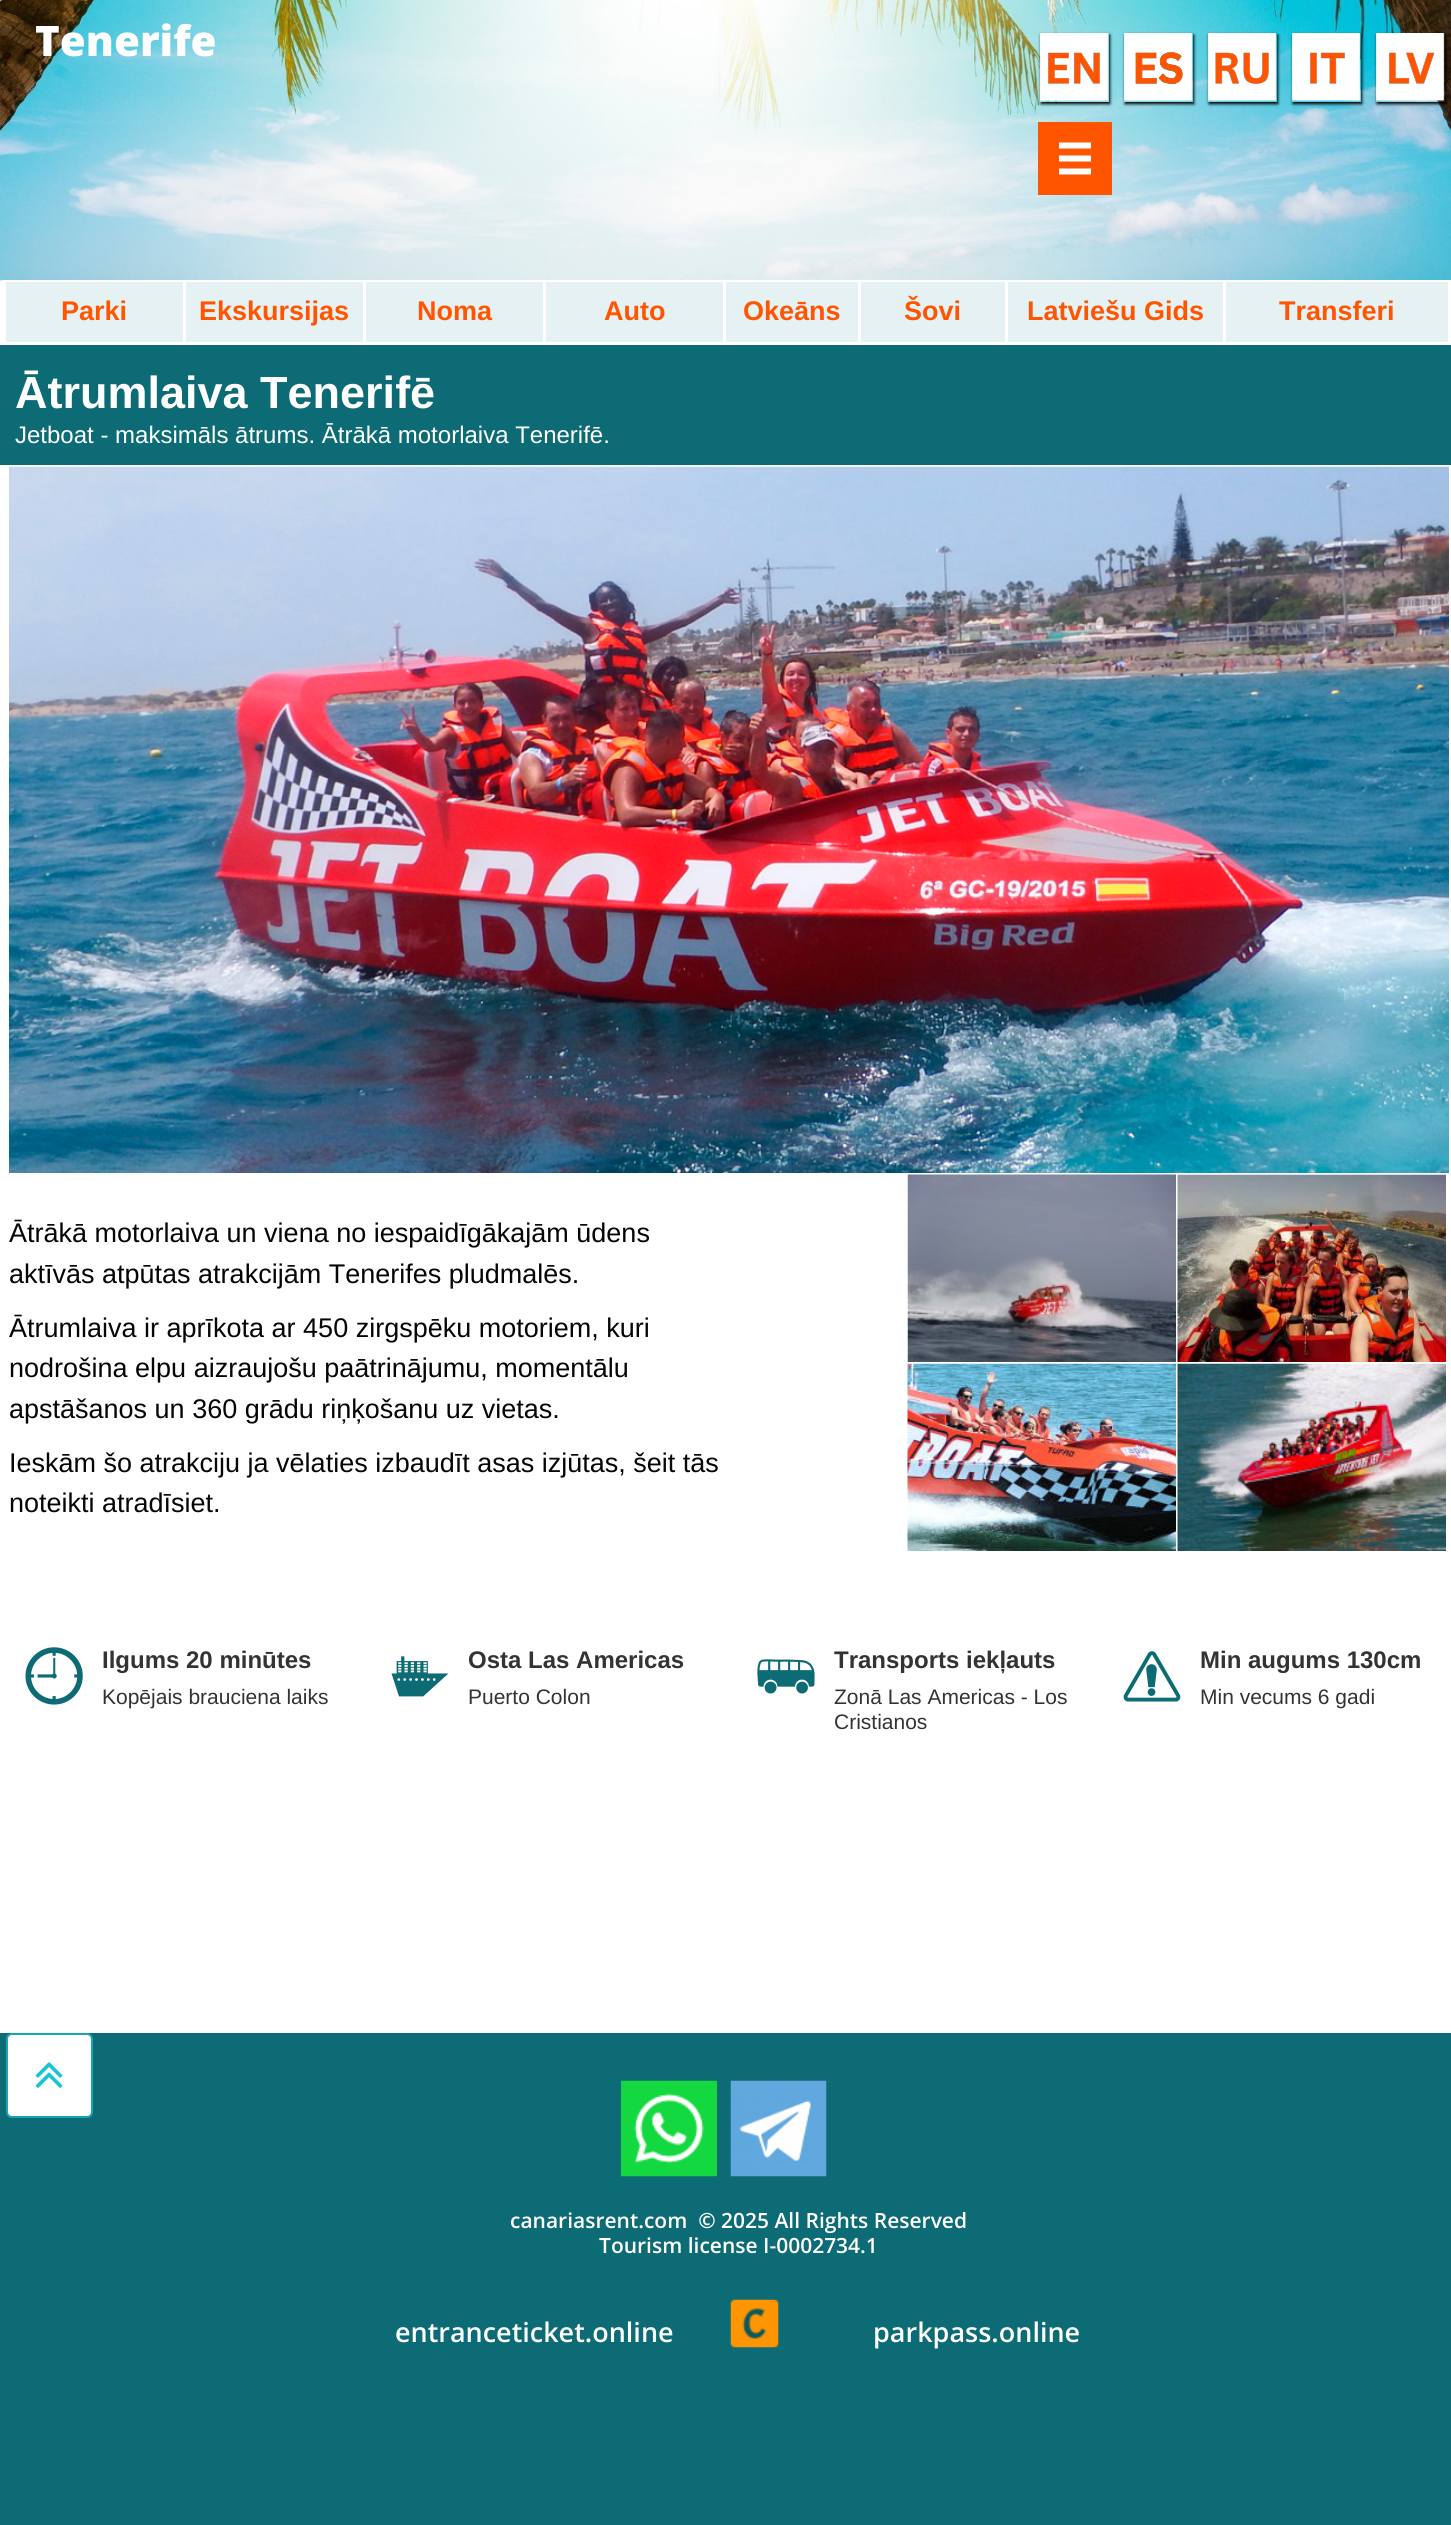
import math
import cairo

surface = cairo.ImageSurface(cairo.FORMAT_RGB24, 1451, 2525)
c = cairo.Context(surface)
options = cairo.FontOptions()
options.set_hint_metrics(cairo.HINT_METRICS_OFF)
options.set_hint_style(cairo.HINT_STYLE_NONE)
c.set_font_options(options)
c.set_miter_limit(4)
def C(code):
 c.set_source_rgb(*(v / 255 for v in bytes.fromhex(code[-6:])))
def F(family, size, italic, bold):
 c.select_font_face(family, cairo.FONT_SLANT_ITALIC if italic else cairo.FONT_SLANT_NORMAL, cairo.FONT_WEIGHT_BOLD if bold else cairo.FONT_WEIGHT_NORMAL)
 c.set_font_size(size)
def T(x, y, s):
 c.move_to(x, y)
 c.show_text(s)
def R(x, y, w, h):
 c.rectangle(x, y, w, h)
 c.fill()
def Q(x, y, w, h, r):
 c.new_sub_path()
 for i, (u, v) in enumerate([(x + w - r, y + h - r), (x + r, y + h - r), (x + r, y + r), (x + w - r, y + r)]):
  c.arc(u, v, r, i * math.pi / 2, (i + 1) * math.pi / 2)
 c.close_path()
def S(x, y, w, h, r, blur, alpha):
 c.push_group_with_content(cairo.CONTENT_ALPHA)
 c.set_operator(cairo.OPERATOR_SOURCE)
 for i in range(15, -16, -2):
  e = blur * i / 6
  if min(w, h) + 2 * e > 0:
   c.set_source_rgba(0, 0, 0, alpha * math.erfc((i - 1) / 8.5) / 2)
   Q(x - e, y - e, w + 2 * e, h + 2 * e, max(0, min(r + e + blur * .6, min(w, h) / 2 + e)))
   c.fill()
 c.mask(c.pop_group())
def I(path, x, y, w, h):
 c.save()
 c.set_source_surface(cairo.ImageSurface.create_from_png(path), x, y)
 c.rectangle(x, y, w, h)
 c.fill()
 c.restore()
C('ffffff')
c.paint()
I('1.png',0,0,1451,281)
C('ffffff')
c.new_path()
c.move_to(2,280)
c.curve_to(2,281,3,282,4,282)
c.line_to(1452,282)
c.curve_to(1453,282,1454,281,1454,280)
c.line_to(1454,4)
c.curve_to(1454,3,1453,2,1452,2)
c.line_to(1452,279)
c.curve_to(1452,280,1451,280,1450,280)
c.close_path()
c.fill()
F('Open Sans ExtraBold',42,0,0)
T(35,56,'Tenerife')
I('2.png',1040,33,68,68)
c.save()
c.set_fill_rule(cairo.FILL_RULE_EVEN_ODD)
c.new_path()
c.move_to(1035,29)
c.line_to(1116,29)
c.line_to(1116,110)
c.line_to(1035,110)
c.close_path()
c.move_to(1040,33)
c.line_to(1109,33)
c.line_to(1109,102)
c.line_to(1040,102)
c.close_path()
c.clip()
C('000000')
S(1041,35,69,69,0,1.5,1)
c.restore()
I('3.png',1124,33,68,68)
c.save()
c.set_fill_rule(cairo.FILL_RULE_EVEN_ODD)
c.new_path()
c.move_to(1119,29)
c.line_to(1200,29)
c.line_to(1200,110)
c.line_to(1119,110)
c.close_path()
c.move_to(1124,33)
c.line_to(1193,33)
c.line_to(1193,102)
c.line_to(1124,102)
c.close_path()
c.clip()
C('000000')
S(1125,35,69,69,0,1.5,1)
c.restore()
I('4.png',1208,33,68,68)
c.save()
c.set_fill_rule(cairo.FILL_RULE_EVEN_ODD)
c.new_path()
c.move_to(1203,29)
c.line_to(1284,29)
c.line_to(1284,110)
c.line_to(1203,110)
c.close_path()
c.move_to(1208,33)
c.line_to(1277,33)
c.line_to(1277,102)
c.line_to(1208,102)
c.close_path()
c.clip()
C('000000')
S(1209,35,69,69,0,1.5,1)
c.restore()
I('5.png',1292,33,68,68)
c.save()
c.set_fill_rule(cairo.FILL_RULE_EVEN_ODD)
c.new_path()
c.move_to(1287,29)
c.line_to(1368,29)
c.line_to(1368,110)
c.line_to(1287,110)
c.close_path()
c.move_to(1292,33)
c.line_to(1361,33)
c.line_to(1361,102)
c.line_to(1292,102)
c.close_path()
c.clip()
C('000000')
S(1293,35,69,69,0,1.5,1)
c.restore()
I('6.png',1376,33,68,68)
c.save()
c.set_fill_rule(cairo.FILL_RULE_EVEN_ODD)
c.new_path()
c.move_to(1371,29)
c.line_to(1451,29)
c.line_to(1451,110)
c.line_to(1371,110)
c.close_path()
c.move_to(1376,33)
c.line_to(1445,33)
c.line_to(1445,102)
c.line_to(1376,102)
c.close_path()
c.clip()
C('000000')
S(1377,35,69,69,0,1.5,1)
c.restore()
C('ff5500')
R(1038,122,74,73)
C('ffffff')
c.new_path()
c.move_to(1059,168.5)
c.line_to(1091,168.5)
c.line_to(1091,174.5)
c.line_to(1059,174.5)
c.close_path()
c.move_to(1059,155.5)
c.line_to(1091,155.5)
c.line_to(1091,161.5)
c.line_to(1059,161.5)
c.close_path()
c.move_to(1059,142.5)
c.line_to(1091,142.5)
c.line_to(1091,148.5)
c.line_to(1059,148.5)
c.close_path()
c.fill()
C('e6f1f3')
R(6,282,177,60)
F('Liberation Sans',27,0,1)
C('ff5500')
T(61,320,'Parki')
C('e6f1f3')
R(186,282,177,60)
C('ff5500')
T(199,320,'Ekskursijas')
C('e6f1f3')
R(366,282,177,60)
C('ff5500')
T(417,320,'Noma')
C('e6f1f3')
R(546,282,177,60)
C('ff5500')
T(604,320,'Auto')
C('e6f1f3')
R(726,282,132,60)
C('ff5500')
T(743,320,'Okeāns')
C('e6f1f3')
R(861,282,144,60)
C('ff5500')
T(904,320,'Šovi')
C('e6f1f3')
R(1008,282,215,60)
C('ff5500')
T(1027,320,'Latviešu Gids')
C('e6f1f3')
R(1226,282,222,60)
C('ff5500')
T(1279,320,'Transferi')
C('0c6b74')
R(0,345,1451,120)
F('Liberation Sans',45,0,1)
C('ffffff')
T(15,408,'Ātrumlaiva Tenerifē')
F('Liberation Sans',24,0,0)
T(15,443,'Jetboat - maksimāls ātrums. Ātrākā motorlaiva Tenerifē.')
I('7.png',9,466,1440,707)
F('Liberation Sans',27,0,0)
C('050505')
T(9,1242,'Ātrākā motorlaiva un viena no iespaidīgākajām ūdens')
T(9,1283,'aktīvās atpūtas atrakcijām Tenerifes pludmalēs.')
T(9,1337,'Ātrumlaiva ir aprīkota ar 450 zirgspēku motoriem, kuri')
T(9,1377,'nodrošina elpu aizraujošu paātrinājumu, momentālu')
T(9,1418,'apstāšanos un 360 grādu riņķošanu uz vietas.')
T(9,1472,'Ieskām šo atrakciju ja vēlaties izbaudīt asas izjūtas, šeit tās')
T(9,1512,'noteikti atradīsiet.')
I('8.png',907,1174,269,188)
I('9.png',1177,1174,269,188)
I('10.png',907,1363,269,188)
I('11.png',1177,1363,269,188)
I('12.png',25,1647,58,58)
F('Liberation Sans',24,0,1)
C('333333')
T(102,1668,'Ilgums 20 minūtes')
F('Liberation Sans',21,0,0)
T(102,1704,'Kopējais brauciena laiks')
I('13.png',391,1656,58,41)
F('Liberation Sans',24,0,1)
T(468,1668,'Osta Las Americas')
F('Liberation Sans',21,0,0)
T(468,1704,'Puerto Colon')
I('14.png',757,1659,58,35)
F('Liberation Sans',24,0,1)
T(834,1668,'Transports iekļauts')
F('Liberation Sans',21,0,0)
T(834,1704,'Zonā Las Americas - Los')
T(834,1729,'Cristianos')
I('15.png',1123,1651,58,51)
F('Liberation Sans',24,0,1)
T(1200,1668,'Min augums 130cm')
F('Liberation Sans',21,0,0)
T(1200,1704,'Min vecums 6 gadi')
C('0c6b74')
R(0,2033,1451,492)
C('ffffff')
Q(7,2034,85,83,5)
c.fill_preserve()
C('13a7b4')
c.stroke()
I('16.png',35,2062,28,26)
I('17.png',621,2080,96,97)
I('18.png',730,2080,97,97)
F('Open Sans SemiBold',21,0,0)
C('ffffff')
T(510,2228,'canariasrent.com  © 2025 All Rights Reserved')
T(599,2253,'Tourism license I-0002734.1')
F('Open Sans SemiBold',27,0,0)
T(395,2342,'entranceticket.online')
I('19.png',730,2299,49,49)
T(873,2342,'parkpass.online')
surface.write_to_png('o.png')
